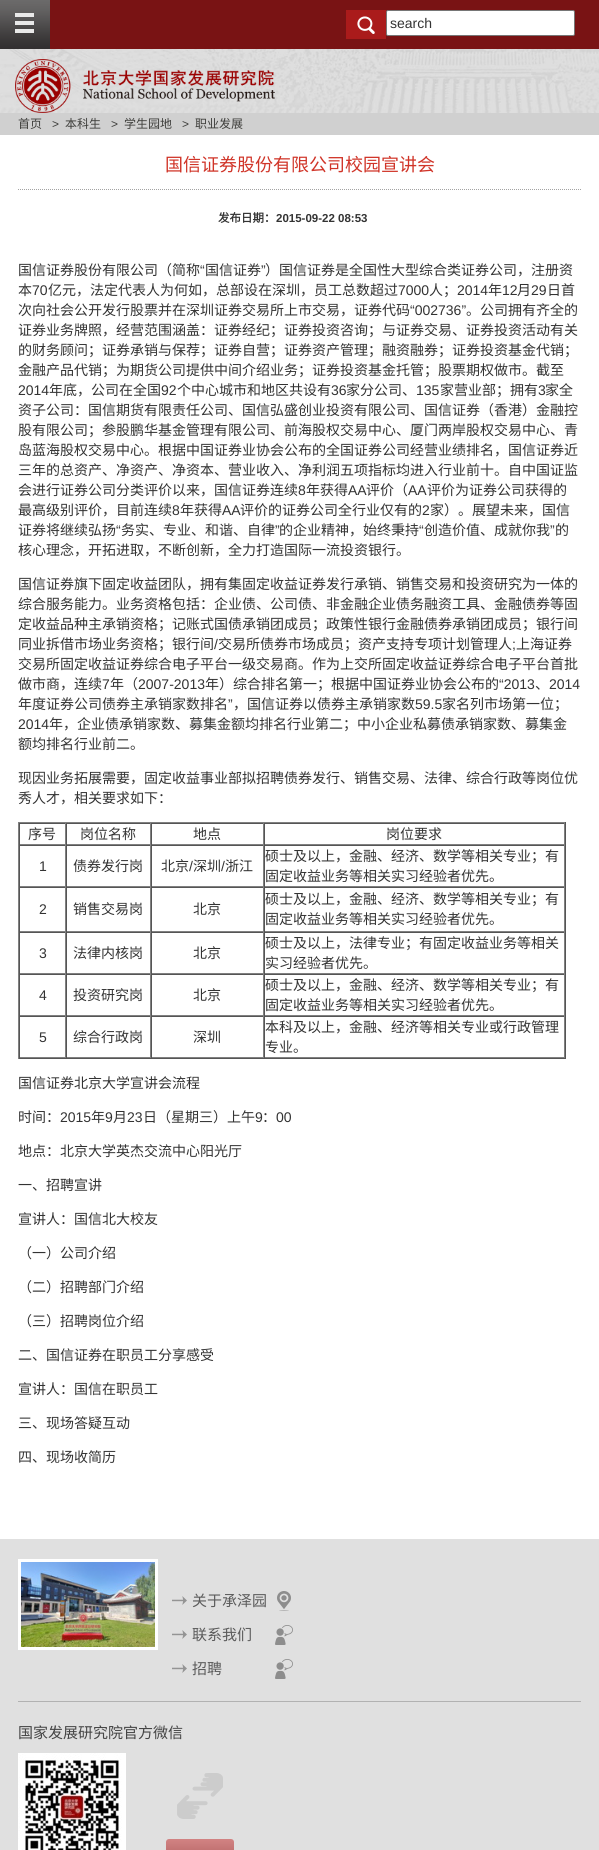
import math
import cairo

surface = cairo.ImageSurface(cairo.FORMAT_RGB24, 599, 1850)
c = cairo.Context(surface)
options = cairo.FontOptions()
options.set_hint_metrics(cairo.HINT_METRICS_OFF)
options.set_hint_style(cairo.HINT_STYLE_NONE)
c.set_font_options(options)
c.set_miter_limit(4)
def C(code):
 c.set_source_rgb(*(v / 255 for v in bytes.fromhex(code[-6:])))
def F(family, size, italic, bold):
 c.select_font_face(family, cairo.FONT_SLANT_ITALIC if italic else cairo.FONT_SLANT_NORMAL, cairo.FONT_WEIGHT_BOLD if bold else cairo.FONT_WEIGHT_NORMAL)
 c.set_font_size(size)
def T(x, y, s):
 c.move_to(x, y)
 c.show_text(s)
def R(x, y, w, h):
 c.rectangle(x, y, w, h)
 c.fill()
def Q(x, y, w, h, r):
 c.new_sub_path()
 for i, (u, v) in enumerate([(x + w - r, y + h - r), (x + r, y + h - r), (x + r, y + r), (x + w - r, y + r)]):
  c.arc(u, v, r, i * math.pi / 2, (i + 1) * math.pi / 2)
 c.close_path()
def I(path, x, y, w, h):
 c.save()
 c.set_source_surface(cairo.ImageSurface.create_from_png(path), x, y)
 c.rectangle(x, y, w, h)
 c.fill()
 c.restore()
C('791314')
c.paint()
I('1.png',0,0,50,49)
C('aa1b1b')
R(346,10,40,29)
I('2.png',357,16,18,18)
C('ffffff')
Q(386.5,10.5,188,25,1.5)
c.fill_preserve()
C('767676')
c.set_line_width(1)
c.stroke()
F('Liberation Sans',14,0,0)
C('333333')
T(390,28,'search')
I('3.png',0,49,599,64)
I('4.png',15,59,260,54)
C('d0d0d0')
R(0,113,599,22)
F('Noto Sans CJK SC',12,0,0)
C('3e3e3b')
T(18,128,'首页')
F('Liberation Sans',12,0,0)
T(52,128,'>')
F('Noto Sans CJK SC',12,0,0)
T(65,128,'本科生')
F('Liberation Sans',12,0,0)
T(111,128,'>')
F('Noto Sans CJK SC',12,0,0)
T(124,128,'学生园地')
F('Liberation Sans',12,0,0)
T(182,128,'>')
F('Noto Sans CJK SC',12,0,0)
T(195,128,'职业发展')
C('ffffff')
R(0,135,599,1404)
c.new_path()
c.move_to(18,189.5)
c.line_to(581,189.5)
C('a3a3a3')
c.set_dash([1,1])
c.stroke()
F('Noto Sans CJK SC',18,0,0)
C('d03428')
T(165,171,'国信证券股份有限公司校园宣讲会')
F('Noto Sans CJK SC',11.5,0,1)
C('333333')
T(218,222,'发布日期：')
F('Liberation Sans',11.5,0,1)
T(276,222,'2015-09-22 08:53')
F('Noto Sans CJK SC',14,0,0)
T(18,275,'国信证券股份有限公司（简称')
F('Liberation Sans',14,0,0)
T(200,275,'“')
F('Noto Sans CJK SC',14,0,0)
T(205,275,'国信证券')
F('Liberation Sans',14,0,0)
T(261,275,'”')
F('Noto Sans CJK SC',14,0,0)
T(265,275,'）国信证券是全国性大型综合类证券公司，注册资')
T(18,295,'本')
F('Liberation Sans',14,0,0)
T(32,295,'70')
F('Noto Sans CJK SC',14,0,0)
T(48,295,'亿元，法定代表人为何如，总部设在深圳，员工总数超过')
F('Liberation Sans',14,0,0)
T(398,295,'7000')
F('Noto Sans CJK SC',14,0,0)
T(429,295,'人；')
F('Liberation Sans',14,0,0)
T(457,295,'2014')
F('Noto Sans CJK SC',14,0,0)
T(488,295,'年')
F('Liberation Sans',14,0,0)
T(502,295,'12')
F('Noto Sans CJK SC',14,0,0)
T(517,295,'月')
F('Liberation Sans',14,0,0)
T(531,295,'29')
F('Noto Sans CJK SC',14,0,0)
T(547,295,'日首')
T(18,315,'次向社会公开发行股票并在深圳证券交易所上市交易，证券代码')
F('Liberation Sans',14,0,0)
T(410,315,'“002736”')
F('Noto Sans CJK SC',14,0,0)
T(466,315,'。公司拥有齐全的')
T(18,335,'证券业务牌照，经营范围涵盖：证券经纪；证券投资咨询；与证券交易、证券投资活动有关')
T(18,355,'的财务顾问；证券承销与保荐；证券自营；证券资产管理；融资融券；证券投资基金代销；')
T(18,375,'金融产品代销；为期货公司提供中间介绍业务；证券投资基金托管；股票期权做市。截至')
F('Liberation Sans',14,0,0)
T(18,395,'2014')
F('Noto Sans CJK SC',14,0,0)
T(49,395,'年底，公司在全国')
F('Liberation Sans',14,0,0)
T(161,395,'92')
F('Noto Sans CJK SC',14,0,0)
T(177,395,'个中心城市和地区共设有')
F('Liberation Sans',14,0,0)
T(331,395,'36')
F('Noto Sans CJK SC',14,0,0)
T(346,395,'家分公司、')
F('Liberation Sans',14,0,0)
T(416,395,'135')
F('Noto Sans CJK SC',14,0,0)
T(440,395,'家营业部；拥有')
F('Liberation Sans',14,0,0)
T(538,395,'3')
F('Noto Sans CJK SC',14,0,0)
T(545,395,'家全')
T(18,415,'资子公司：国信期货有限责任公司、国信弘盛创业投资有限公司、国信证券（香港）金融控')
T(18,435,'股有限公司；参股鹏华基金管理有限公司、前海股权交易中心、厦门两岸股权交易中心、青')
T(18,455,'岛蓝海股权交易中心。根据中国证券业协会公布的全国证券公司经营业绩排名，国信证券近')
T(18,475,'三年的总资产、净资产、净资本、营业收入、净利润五项指标均进入行业前十。自中国证监')
T(18,495,'会进行证券公司分类评价以来，国信证券连续')
F('Liberation Sans',14,0,0)
T(298,495,'8')
F('Noto Sans CJK SC',14,0,0)
T(306,495,'年获得')
F('Liberation Sans',14,0,0)
T(348,495,'AA')
F('Noto Sans CJK SC',14,0,0)
T(366,495,'评价（')
F('Liberation Sans',14,0,0)
T(408,495,'AA')
F('Noto Sans CJK SC',14,0,0)
T(427,495,'评价为证券公司获得的')
T(18,515,'最高级别评价，目前连续')
F('Liberation Sans',14,0,0)
T(172,515,'8')
F('Noto Sans CJK SC',14,0,0)
T(180,515,'年获得')
F('Liberation Sans',14,0,0)
T(222,515,'AA')
F('Noto Sans CJK SC',14,0,0)
T(240,515,'评价的证券公司全行业仅有的')
F('Liberation Sans',14,0,0)
T(422,515,'2')
F('Noto Sans CJK SC',14,0,0)
T(430,515,'家）。展望未来，国信')
T(18,535,'证券将继续弘扬')
F('Liberation Sans',14,0,0)
T(116,535,'“')
F('Noto Sans CJK SC',14,0,0)
T(121,535,'务实、专业、和谐、自律')
F('Liberation Sans',14,0,0)
T(275,535,'”')
F('Noto Sans CJK SC',14,0,0)
T(279,535,'的企业精神，始终秉持')
F('Liberation Sans',14,0,0)
T(419,535,'“')
F('Noto Sans CJK SC',14,0,0)
T(424,535,'创造价值、成就你我')
F('Liberation Sans',14,0,0)
T(550,535,'”')
F('Noto Sans CJK SC',14,0,0)
T(555,535,'的')
T(18,555,'核心理念，开拓进取，不断创新，全力打造国际一流投资银行。')
T(18,589,'国信证券旗下固定收益团队，拥有集固定收益证券发行承销、销售交易和投资研究为一体的')
T(18,609,'综合服务能力。业务资格包括：企业债、公司债、非金融企业债务融资工具、金融债券等固')
T(18,629,'定收益品种主承销资格；记账式国债承销团成员；政策性银行金融债券承销团成员；银行间')
T(18,649,'同业拆借市场业务资格；银行间')
F('Liberation Sans',14,0,0)
T(214,649,'/')
F('Noto Sans CJK SC',14,0,0)
T(218,649,'交易所债券市场成员；资产支持专项计划管理人')
F('Liberation Sans',14,0,0)
T(512,649,';')
F('Noto Sans CJK SC',14,0,0)
T(516,649,'上海证券')
T(18,669,'交易所固定收益证券综合电子平台一级交易商。作为上交所固定收益证券综合电子平台首批')
T(18,689,'做市商，连续')
F('Liberation Sans',14,0,0)
T(102,689,'7')
F('Noto Sans CJK SC',14,0,0)
T(110,689,'年（')
F('Liberation Sans',14,0,0)
T(138,689,'2007-2013')
F('Noto Sans CJK SC',14,0,0)
T(205,689,'年）综合排名第一；根据中国证券业协会公布的')
F('Liberation Sans',14,0,0)
T(499,689,'“2013')
F('Noto Sans CJK SC',14,0,0)
T(535,689,'、')
F('Liberation Sans',14,0,0)
T(549,689,'2014')
F('Noto Sans CJK SC',14,0,0)
T(18,709,'年度证券公司债券主承销家数排名')
F('Liberation Sans',14,0,0)
T(228,709,'”')
F('Noto Sans CJK SC',14,0,0)
T(233,709,'，国信证券以债券主承销家数')
F('Liberation Sans',14,0,0)
T(415,709,'59.5')
F('Noto Sans CJK SC',14,0,0)
T(442,709,'家名列市场第一位；')
F('Liberation Sans',14,0,0)
T(18,729,'2014')
F('Noto Sans CJK SC',14,0,0)
T(49,729,'年，企业债承销家数、募集金额均排名行业第二；中小企业私募债承销家数、募集金')
T(18,749,'额均排名行业前二。')
T(18,783,'现因业务拓展需要，固定收益事业部拟招聘债券发行、销售交易、法律、综合行政等岗位优')
T(18,803,'秀人才，相关要求如下：')
C('808080')
R(18,822,548,1)
C('555555')
R(565,822,1,237)
R(18,1058,548,1)
C('808080')
R(18,822,1,237)
C('555555')
R(19,823,546,1)
C('808080')
R(65,823,1,22)
R(19,844,47,1)
C('555555')
R(19,823,1,22)
C('333333')
T(28,839,'序号')
C('808080')
R(150,823,1,22)
R(66,844,85,1)
C('555555')
R(66,823,1,22)
C('333333')
T(80,839,'岗位名称')
C('808080')
R(263,823,1,22)
R(151,844,113,1)
C('555555')
R(151,823,1,22)
C('333333')
T(193,839,'地点')
C('808080')
R(564,823,1,22)
R(264,844,301,1)
C('555555')
R(264,823,1,22)
C('333333')
T(386,839,'岗位要求')
C('555555')
R(19,845,546,1)
C('808080')
R(65,845,1,42)
R(19,886,47,1)
C('555555')
R(19,845,1,42)
F('Liberation Sans',14,0,0)
C('333333')
T(39,871,'1')
C('808080')
R(150,845,1,42)
R(66,886,85,1)
C('555555')
R(66,845,1,42)
F('Noto Sans CJK SC',14,0,0)
C('333333')
T(73,871,'债券发行岗')
C('808080')
R(263,845,1,42)
R(151,886,113,1)
C('555555')
R(151,845,1,42)
C('333333')
T(161,871,'北京')
F('Liberation Sans',14,0,0)
T(189,871,'/')
F('Noto Sans CJK SC',14,0,0)
T(193,871,'深圳')
F('Liberation Sans',14,0,0)
T(221,871,'/')
F('Noto Sans CJK SC',14,0,0)
T(225,871,'浙江')
C('808080')
R(564,845,1,42)
R(264,886,301,1)
C('555555')
R(264,845,1,42)
C('333333')
T(265,861,'硕士及以上，金融、经济、数学等相关专业；有')
T(265,881,'固定收益业务等相关实习经验者优先。')
C('555555')
R(19,887,546,1)
C('808080')
R(65,887,1,45)
R(19,931,47,1)
C('555555')
R(19,887,1,45)
F('Liberation Sans',14,0,0)
C('333333')
T(39,914,'2')
C('808080')
R(150,887,1,45)
R(66,931,85,1)
C('555555')
R(66,887,1,45)
F('Noto Sans CJK SC',14,0,0)
C('333333')
T(73,914,'销售交易岗')
C('808080')
R(263,887,1,45)
R(151,931,113,1)
C('555555')
R(151,887,1,45)
C('333333')
T(193,914,'北京')
C('808080')
R(564,887,1,45)
R(264,931,301,1)
C('555555')
R(264,887,1,45)
C('333333')
T(265,904,'硕士及以上，金融、经济、数学等相关专业；有')
T(265,924,'固定收益业务等相关实习经验者优先。')
C('555555')
R(19,932,546,1)
C('808080')
R(65,932,1,42)
R(19,973,47,1)
C('555555')
R(19,932,1,42)
F('Liberation Sans',14,0,0)
C('333333')
T(39,958,'3')
C('808080')
R(150,932,1,42)
R(66,973,85,1)
C('555555')
R(66,932,1,42)
F('Noto Sans CJK SC',14,0,0)
C('333333')
T(73,958,'法律内核岗')
C('808080')
R(263,932,1,42)
R(151,973,113,1)
C('555555')
R(151,932,1,42)
C('333333')
T(193,958,'北京')
C('808080')
R(564,932,1,42)
R(264,973,301,1)
C('555555')
R(264,932,1,42)
C('333333')
T(265,948,'硕士及以上，法律专业；有固定收益业务等相关')
T(265,968,'实习经验者优先。')
C('555555')
R(19,974,546,1)
C('808080')
R(65,974,1,42)
R(19,1015,47,1)
C('555555')
R(19,974,1,42)
F('Liberation Sans',14,0,0)
C('333333')
T(39,1000,'4')
C('808080')
R(150,974,1,42)
R(66,1015,85,1)
C('555555')
R(66,974,1,42)
F('Noto Sans CJK SC',14,0,0)
C('333333')
T(73,1000,'投资研究岗')
C('808080')
R(263,974,1,42)
R(151,1015,113,1)
C('555555')
R(151,974,1,42)
C('333333')
T(193,1000,'北京')
C('808080')
R(564,974,1,42)
R(264,1015,301,1)
C('555555')
R(264,974,1,42)
C('333333')
T(265,990,'硕士及以上，金融、经济、数学等相关专业；有')
T(265,1010,'固定收益业务等相关实习经验者优先。')
C('555555')
R(19,1016,546,1)
C('808080')
R(65,1016,1,42)
R(19,1057,47,1)
C('555555')
R(19,1016,1,42)
F('Liberation Sans',14,0,0)
C('333333')
T(39,1042,'5')
C('808080')
R(150,1016,1,42)
R(66,1057,85,1)
C('555555')
R(66,1016,1,42)
F('Noto Sans CJK SC',14,0,0)
C('333333')
T(73,1042,'综合行政岗')
C('808080')
R(263,1016,1,42)
R(151,1057,113,1)
C('555555')
R(151,1016,1,42)
C('333333')
T(193,1042,'深圳')
C('808080')
R(564,1016,1,42)
R(264,1057,301,1)
C('555555')
R(264,1016,1,42)
C('333333')
T(265,1032,'本科及以上，金融、经济等相关专业或行政管理')
T(265,1052,'专业。')
T(18,1088,'国信证券北京大学宣讲会流程')
T(18,1122,'时间：')
F('Liberation Sans',14,0,0)
T(60,1122,'2015')
F('Noto Sans CJK SC',14,0,0)
T(91,1122,'年')
F('Liberation Sans',14,0,0)
T(105,1122,'9')
F('Noto Sans CJK SC',14,0,0)
T(113,1122,'月')
F('Liberation Sans',14,0,0)
T(127,1122,'23')
F('Noto Sans CJK SC',14,0,0)
T(143,1122,'日（星期三）上午')
F('Liberation Sans',14,0,0)
T(255,1122,'9')
F('Noto Sans CJK SC',14,0,0)
T(262,1122,'：')
F('Liberation Sans',14,0,0)
T(276,1122,'00')
F('Noto Sans CJK SC',14,0,0)
T(18,1156,'地点：北京大学英杰交流中心阳光厅')
T(18,1190,'一、招聘宣讲')
T(18,1224,'宣讲人：国信北大校友')
T(18,1258,'（一）公司介绍')
T(18,1292,'（二）招聘部门介绍')
T(18,1326,'（三）招聘岗位介绍')
T(18,1360,'二、国信证券在职员工分享感受')
T(18,1394,'宣讲人：国信在职员工')
T(18,1428,'三、现场答疑互动')
T(18,1462,'四、现场收简历')
C('e0e0e0')
R(0,1539,599,311)
C('b2b2b2')
R(18,1701,563,1)
c.rectangle(19.5,1560.5,137,88)
C('ffffff')
c.set_line_width(3)
c.set_dash([])
c.stroke()
I('5.png',21,1562,134,85)
I('6.png',172,1596,15,9)
F('Noto Sans CJK SC',15,0,0)
C('5b5b5b')
T(192,1606,'关于承泽园')
I('7.png',277,1591,14,20)
I('6.png',172,1630,15,9)
T(192,1640,'联系我们')
I('8.png',275,1625,18,20)
I('6.png',172,1664,15,9)
T(192,1674,'招聘')
I('8.png',275,1659,18,20)
C('444444')
T(18,1738,'国家发展研究院官方微信')
I('9.png',18,1753,108,97)
I('10.png',177,1773,46,46)
gradient = cairo.LinearGradient(200,1839,200,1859)
gradient.add_color_stop_rgba(0,0.824,0.514,0.514,1)
gradient.add_color_stop_rgba(1,0.714,0.4,0.4,1)
c.set_source(gradient)
Q(166,1839,68,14,3)
c.fill()
surface.write_to_png('o.png')
